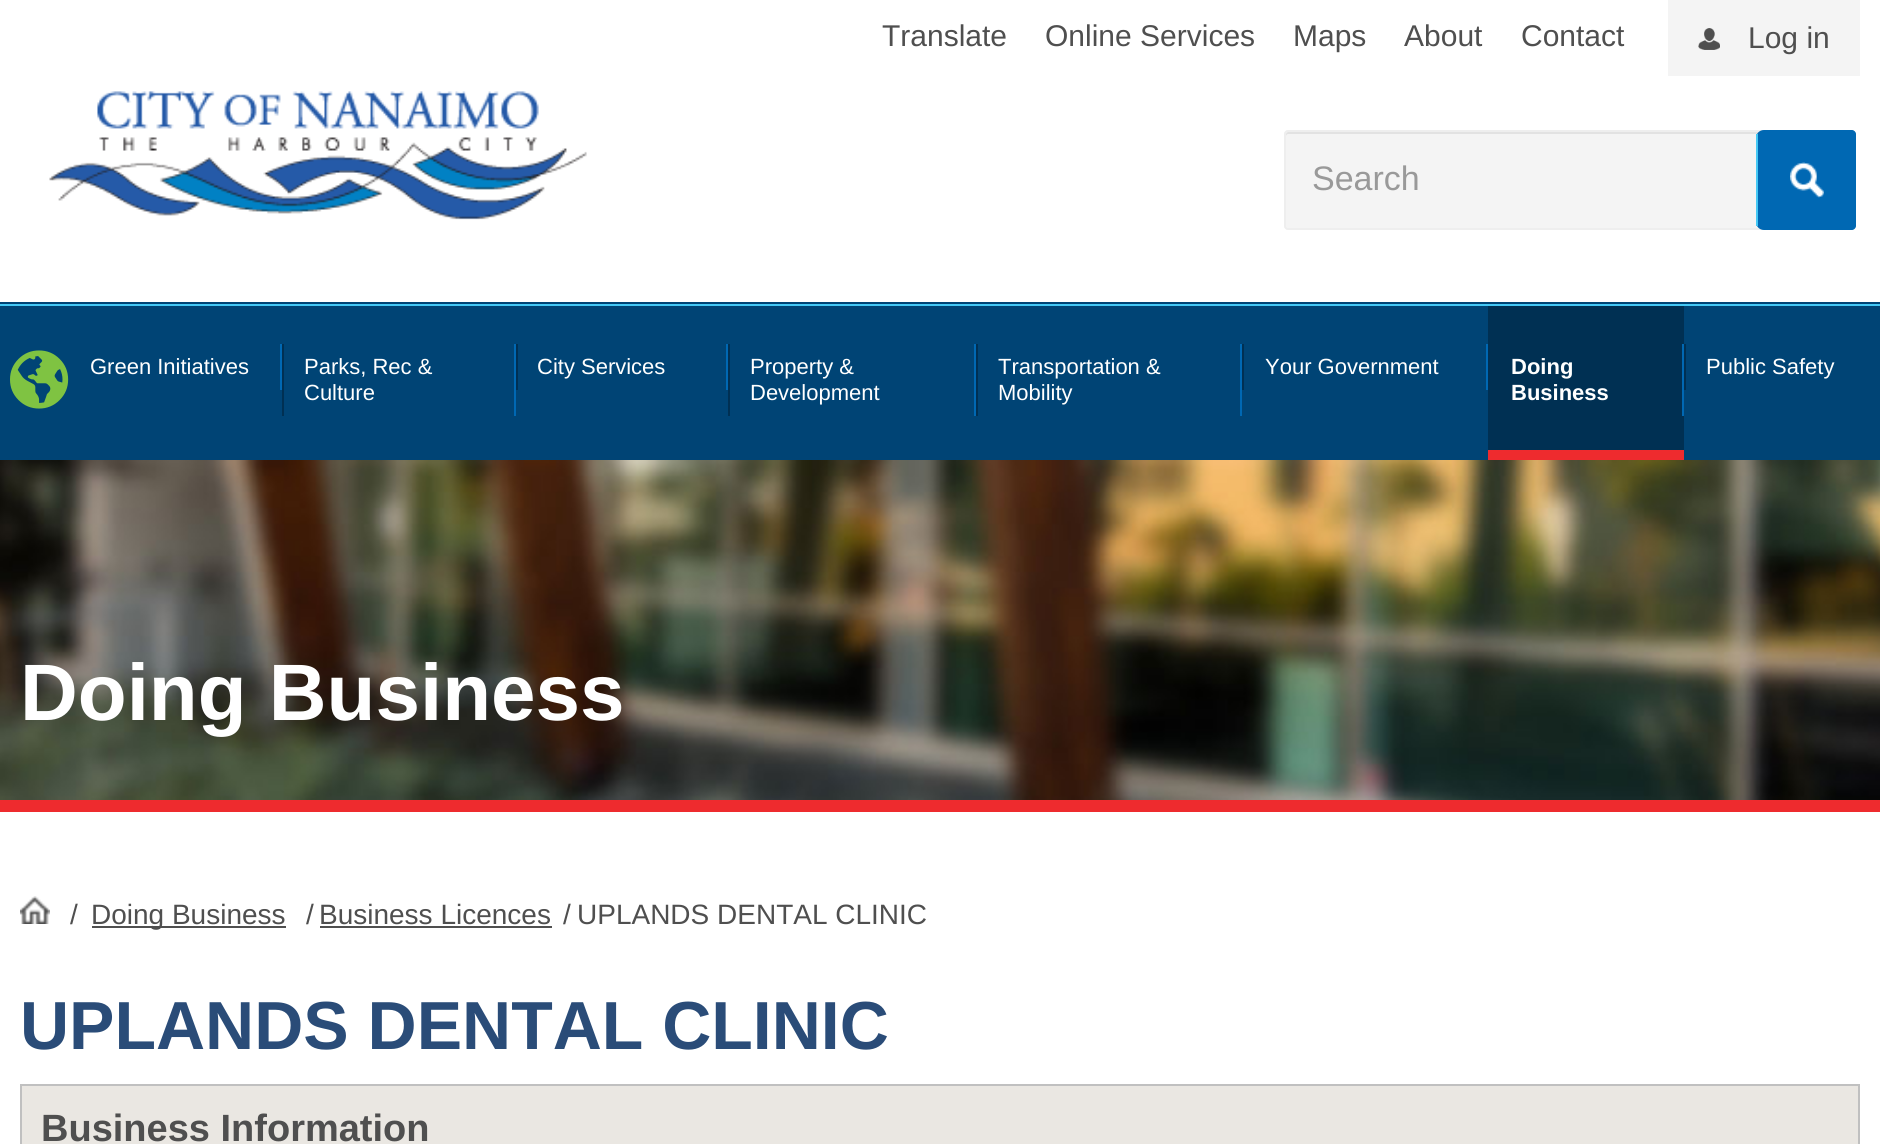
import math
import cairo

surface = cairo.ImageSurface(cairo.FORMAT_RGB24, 1880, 1144)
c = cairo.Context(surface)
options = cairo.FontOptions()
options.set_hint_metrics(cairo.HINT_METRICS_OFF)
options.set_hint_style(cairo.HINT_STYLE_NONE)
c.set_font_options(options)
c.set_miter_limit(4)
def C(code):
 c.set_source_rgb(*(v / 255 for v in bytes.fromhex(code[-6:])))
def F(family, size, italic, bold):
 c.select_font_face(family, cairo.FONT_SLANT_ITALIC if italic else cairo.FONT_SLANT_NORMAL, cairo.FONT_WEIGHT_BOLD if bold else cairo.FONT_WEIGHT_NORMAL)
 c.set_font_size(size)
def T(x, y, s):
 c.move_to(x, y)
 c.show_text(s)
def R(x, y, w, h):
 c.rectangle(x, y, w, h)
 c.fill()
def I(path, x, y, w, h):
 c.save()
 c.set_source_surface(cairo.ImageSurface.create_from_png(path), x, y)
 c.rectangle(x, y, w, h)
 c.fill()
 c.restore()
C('ffffff')
c.paint()
F('Liberation Sans',30,0,0)
C('4f4f4f')
T(882,46,'Translate')
T(1045,46,'Online Services')
T(1293,46,'Maps')
T(1404,46,'About')
T(1521,46,'Contact')
C('f4f4f4')
R(1668,0,192,76)
I('1.png',1698,28,22,22)
C('4f4f4f')
T(1748,48,'Log in')
I('2.png',49,91,538,129)
C('f4f4f4')
c.new_path()
c.move_to(1288,130)
c.line_to(1848,130)
c.curve_to(1852.5,130,1856,133.5,1856,138)
c.line_to(1856,222)
c.curve_to(1856,226.5,1852.5,230,1848,230)
c.line_to(1288,230)
c.curve_to(1286,230,1284,228,1284,226)
c.line_to(1284,134)
c.curve_to(1284,132,1286,130,1288,130)
c.close_path()
c.fill()
C('e2e2e2')
c.new_path()
c.move_to(1288,134)
c.line_to(1848,134)
c.curve_to(1851,134,1854,137,1854,140)
c.line_to(1854,138)
c.curve_to(1854,135,1851,132,1848,132)
c.line_to(1288,132)
c.curve_to(1287,132,1286,133,1286,134)
c.line_to(1286,136)
c.curve_to(1286,135,1287,134,1288,134)
c.close_path()
c.fill()
c.new_path()
c.move_to(1288,131)
c.line_to(1848,131)
c.curve_to(1852,131,1855,134,1855,138)
c.line_to(1855,222)
c.curve_to(1855,226,1852,229,1848,229)
c.line_to(1288,229)
c.curve_to(1286.5,229,1285,227.5,1285,226)
c.line_to(1285,134)
c.curve_to(1285,132.5,1286.5,131,1288,131)
c.close_path()
C('eeeeee')
c.stroke()
F('Liberation Sans',34,0,0)
C('999999')
T(1312,190,'Search')
C('0068b3')
c.new_path()
c.move_to(1764,130)
c.line_to(1852,130)
c.curve_to(1854,130,1856,132,1856,134)
c.line_to(1856,226)
c.curve_to(1856,228,1854,230,1852,230)
c.line_to(1764,230)
c.curve_to(1759.5,230,1756,226.5,1756,222)
c.line_to(1756,138)
c.curve_to(1756,133.5,1759.5,130,1764,130)
c.close_path()
c.fill()
I('3.png',1790,162,34,36)
C('44c8f5')
R(1756,134,2,92)
C('004475')
R(0,302,1880,158)
C('44c8f5')
R(0,304,1880,2)
I('4.png',10,350,59,59)
C('0068b3')
R(280,344,2,46)
F('Liberation Sans',22,0,0)
C('ffffff')
T(90,374,'Green Initiatives')
C('0068b3')
R(514,344,2,72)
C('003053')
R(282,344,2,72)
C('ffffff')
T(304,374,'Parks, Rec &')
T(304,400,'Culture')
C('0068b3')
R(726,344,2,46)
C('003053')
R(516,344,2,46)
C('ffffff')
T(537,374,'City Services')
C('0068b3')
R(974,344,2,72)
C('003053')
R(728,344,2,72)
C('ffffff')
T(750,374,'Property &')
T(750,400,'Development')
C('0068b3')
R(1240,344,2,72)
C('003053')
R(976,344,2,72)
C('ffffff')
T(998,374,'Transportation &')
T(998,400,'Mobility')
C('0068b3')
R(1486,344,2,46)
C('003053')
R(1242,344,2,46)
C('ffffff')
T(1265,374,'Your Government')
C('003053')
R(1488,306,196,144)
C('ee2b2e')
R(1488,450,196,10)
C('0068b3')
R(1682,344,2,72)
F('Liberation Sans',22,0,1)
C('ffffff')
T(1511,374,'Doing')
T(1511,400,'Business')
C('003053')
R(1684,344,2,46)
F('Liberation Sans',22,0,0)
C('ffffff')
T(1706,374,'Public Safety')
I('5.png',0,460,1880,340)
F('Liberation Sans',80,0,1)
T(20,720,'Doing Business')
C('ee2b2e')
R(0,800,1880,12)
I('6.png',20,896,30,28)
F('Liberation Sans',28,0,0)
C('4f4f4f')
T(70,924,'/')
R(92,926,194,2)
T(91,924,'Doing Business')
T(306,924,'/')
T(319,924,'Business Licences')
R(320,926,232,2)
T(563,924,'/')
T(577,924,'UPLANDS DENTAL CLINIC')
F('Liberation Sans',68,0,1)
C('2a4c78')
T(20,1049,'UPLANDS DENTAL CLINIC')
C('eae7e2')
R(22,1086,1836,58)
C('c0c0c0')
R(20,1084,1840,2)
R(1858,1084,2,60)
R(20,1084,2,60)
F('Liberation Sans',38,0,1)
C('4f4f4f')
T(41,1141,'Business Information')
surface.write_to_png('o.png')
